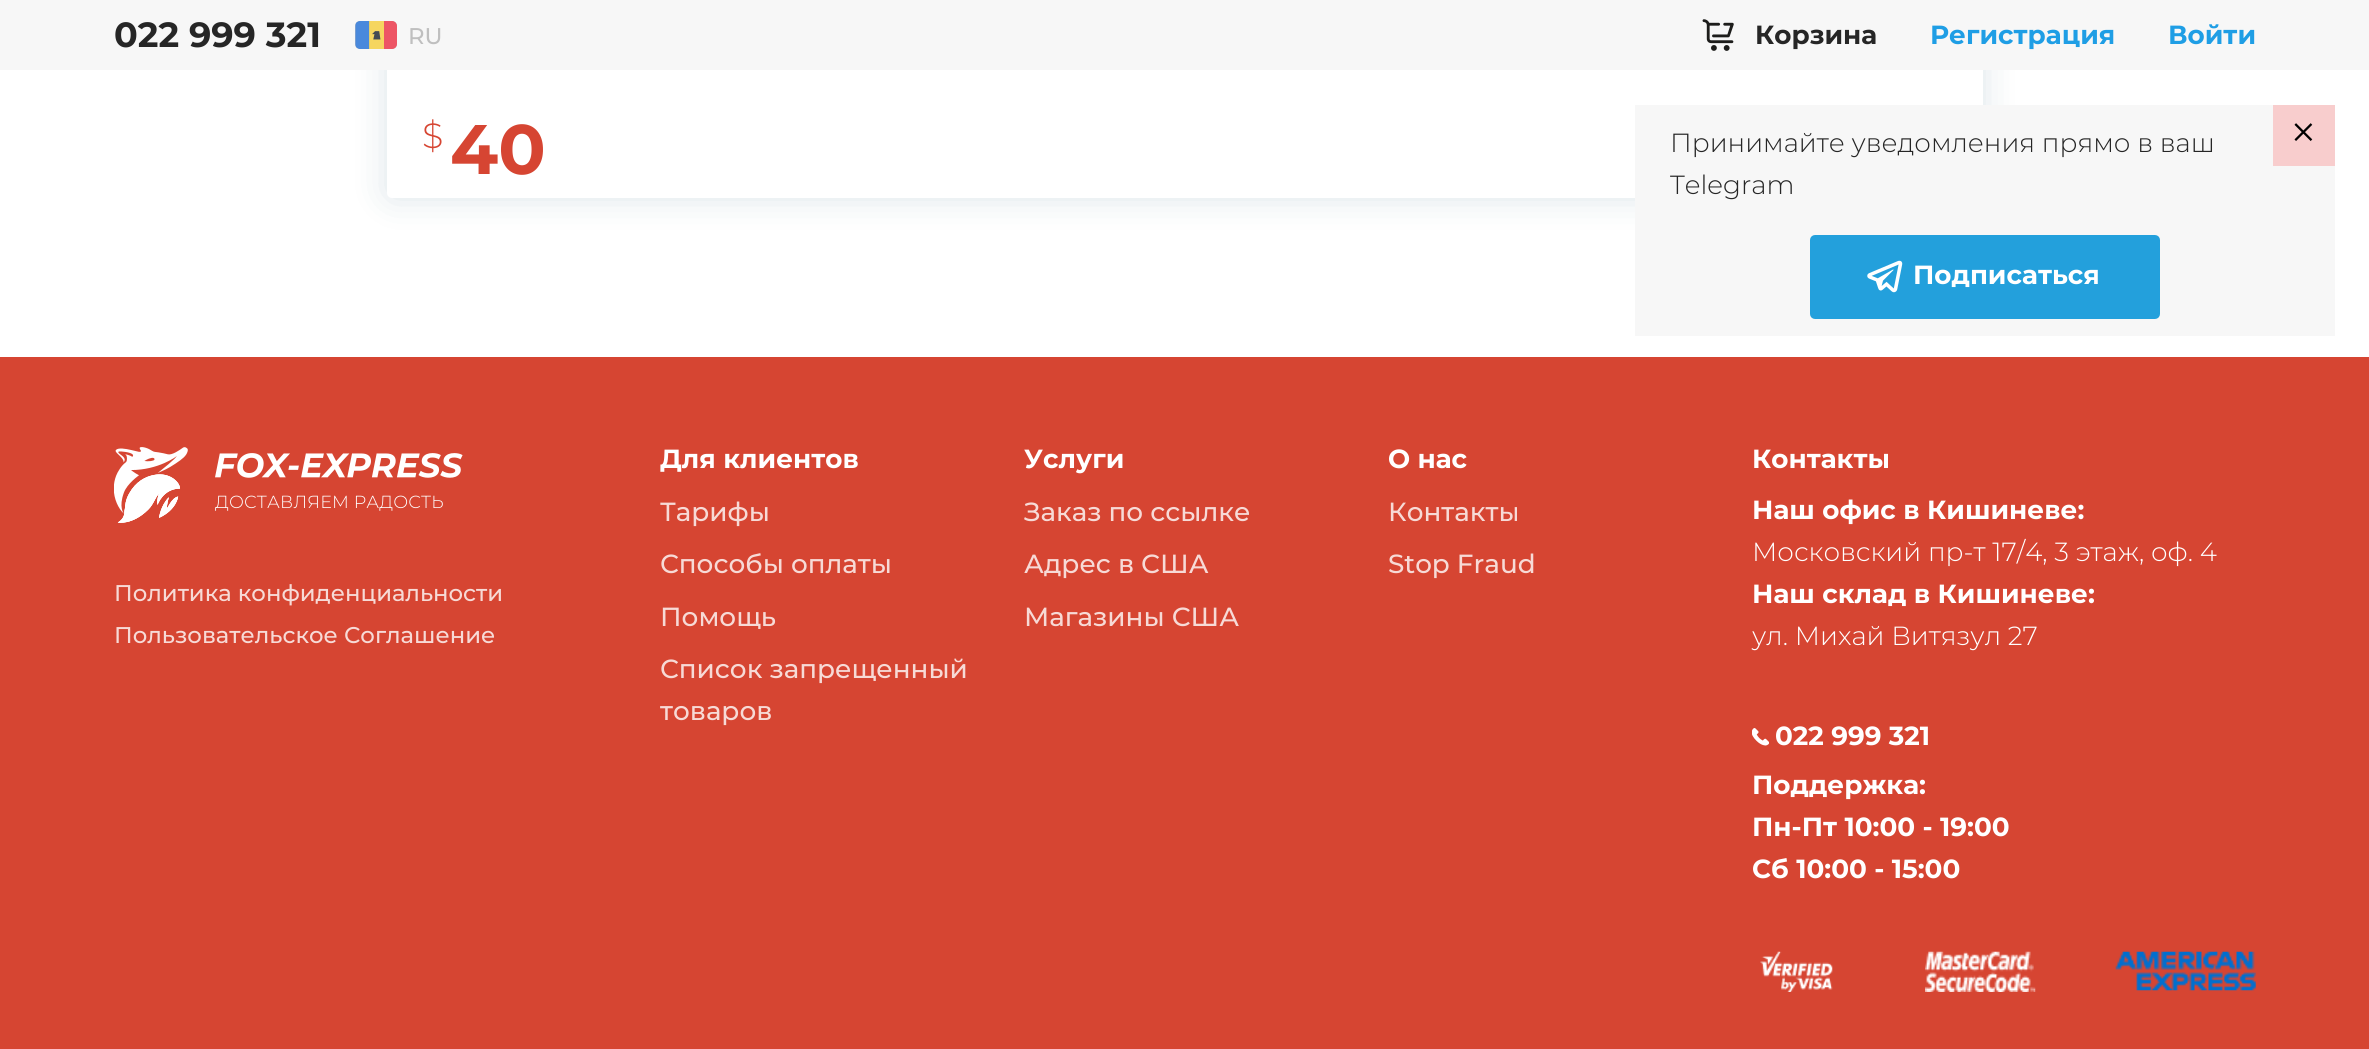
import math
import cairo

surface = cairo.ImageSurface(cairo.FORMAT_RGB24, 2369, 1049)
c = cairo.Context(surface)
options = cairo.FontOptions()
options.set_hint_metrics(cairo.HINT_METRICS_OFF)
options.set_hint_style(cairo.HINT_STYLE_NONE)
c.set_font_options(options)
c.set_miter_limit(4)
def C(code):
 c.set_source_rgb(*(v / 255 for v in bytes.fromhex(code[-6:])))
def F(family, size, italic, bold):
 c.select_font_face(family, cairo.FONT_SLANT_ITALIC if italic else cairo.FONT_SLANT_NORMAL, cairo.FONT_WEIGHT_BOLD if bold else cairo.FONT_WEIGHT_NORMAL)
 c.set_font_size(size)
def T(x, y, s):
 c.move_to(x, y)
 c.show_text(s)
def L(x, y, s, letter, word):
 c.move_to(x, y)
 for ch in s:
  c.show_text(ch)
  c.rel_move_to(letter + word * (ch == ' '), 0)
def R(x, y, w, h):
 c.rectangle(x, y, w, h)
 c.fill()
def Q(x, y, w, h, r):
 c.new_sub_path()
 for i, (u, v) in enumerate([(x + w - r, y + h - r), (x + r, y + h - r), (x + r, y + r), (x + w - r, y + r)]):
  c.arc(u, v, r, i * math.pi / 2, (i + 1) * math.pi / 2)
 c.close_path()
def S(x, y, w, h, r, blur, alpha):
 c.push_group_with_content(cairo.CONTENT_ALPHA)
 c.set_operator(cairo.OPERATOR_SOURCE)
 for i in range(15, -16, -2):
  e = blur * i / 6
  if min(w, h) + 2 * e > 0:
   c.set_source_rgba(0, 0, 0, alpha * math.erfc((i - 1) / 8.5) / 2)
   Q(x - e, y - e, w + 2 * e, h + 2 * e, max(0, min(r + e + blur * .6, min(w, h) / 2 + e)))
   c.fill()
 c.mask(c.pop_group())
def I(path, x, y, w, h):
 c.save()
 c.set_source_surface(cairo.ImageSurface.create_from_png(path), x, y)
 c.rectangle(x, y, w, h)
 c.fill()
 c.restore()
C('ffffff')
c.paint()
C('144b66')
S(387,-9,1596,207,5,17.5,.15)
C('ffffff')
Q(387,-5,1596,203,5)
c.fill()
C('f7f7f7')
R(0,0,2369,70)
F('Montserrat',35,0,1)
C('262626')
T(114,47,'022 999 321')
C('bfbfbf')
Q(355,21,42,28,5)
c.fill()
I('1.png',355,21,42,28)
F('Montserrat Medium',22.75,0,0)
T(408,44,'RU')
I('2.png',1702,19,32,32)
F('Montserrat',26.25,0,1)
C('262626')
T(1755,44,'Корзина')
C('1f9ee5')
T(1930,44,'Регистрация')
T(2168,44,'Войти')
F('Montserrat Light',35,0,0)
C('d64532')
T(422,148,'$')
F('Montserrat',70,0,1)
T(450,174,'40')
C('f7f7f7')
R(1635,105,700,231)
F('Montserrat Light',26.25,0,0)
C('262626')
T(1670,152,'Принимайте уведомления прямо в ваш')
T(1670,194,'Telegram')
C('23a0dc')
Q(1812.5,237.5,345,79,2.5)
c.fill_preserve()
c.set_line_width(5)
c.stroke()
I('3.png',1867,260,36,33)
F('Montserrat',26.25,0,1)
C('ffffff')
T(1913,284,'Подписаться')
C('f8cdcd')
R(2273,105,62,61)
F('Montserrat Light',54,0,0)
C('000000')
T(2288,151,'×')
C('d64532')
R(0,357,2369,692)
I('4.png',114,447,349,76)
F('Montserrat Light',17.5,0,0)
C('ffffff')
L(215,508,'ДОСТАВЛЯЕМ РАДОСТЬ',.2,0)
F('Montserrat Medium',22.75,0,0)
C('f7dad6')
T(114,601,'Политика конфиденциальности')
T(114,643,'Пользовательское Соглашение')
F('Montserrat',26.25,0,1)
C('ffffff')
T(660,468,'Для клиентов')
F('Montserrat Medium',26.25,0,0)
C('f7dad6')
T(660,521,'Тарифы')
T(660,573,'Способы оплаты')
T(660,626,'Помощь')
T(660,678,'Список запрещенный')
T(660,720,'товаров')
F('Montserrat',26.25,0,1)
C('ffffff')
T(1024,468,'Услуги')
F('Montserrat Medium',26.25,0,0)
C('f7dad6')
T(1024,521,'Заказ по ссылке')
T(1024,573,'Адрес в США')
T(1024,626,'Магазины США')
F('Montserrat',26.25,0,1)
C('ffffff')
T(1388,468,'О нас')
F('Montserrat Medium',26.25,0,0)
C('f7dad6')
T(1388,521,'Контакты')
T(1388,573,'Stop Fraud')
F('Montserrat',26.25,0,1)
C('ffffff')
T(1752,468,'Контакты')
T(1752,519,'Наш офис в Кишиневе:')
F('Montserrat Light',26.25,0,0)
T(1752,561,'Московский пр-т 17/4, 3 этаж, оф. 4')
F('Montserrat',26.25,0,1)
T(1752,603,'Наш склад в Кишиневе:')
F('Montserrat Light',26.25,0,0)
T(1752,645,'ул. Михай Витязул 27')
I('5.png',1752,728,17,18)
F('Montserrat',26.25,0,1)
T(1775,745,'022 999 321')
T(1752,794,'Поддержка:')
T(1752,836,'Пн-Пт 10:00 - 19:00')
T(1752,878,'Сб 10:00 - 15:00')
I('6.png',1760,951,73,41)
I('7.png',1925,951,111,41)
I('8.png',2115,951,141,40)
surface.write_to_png('o.png')
